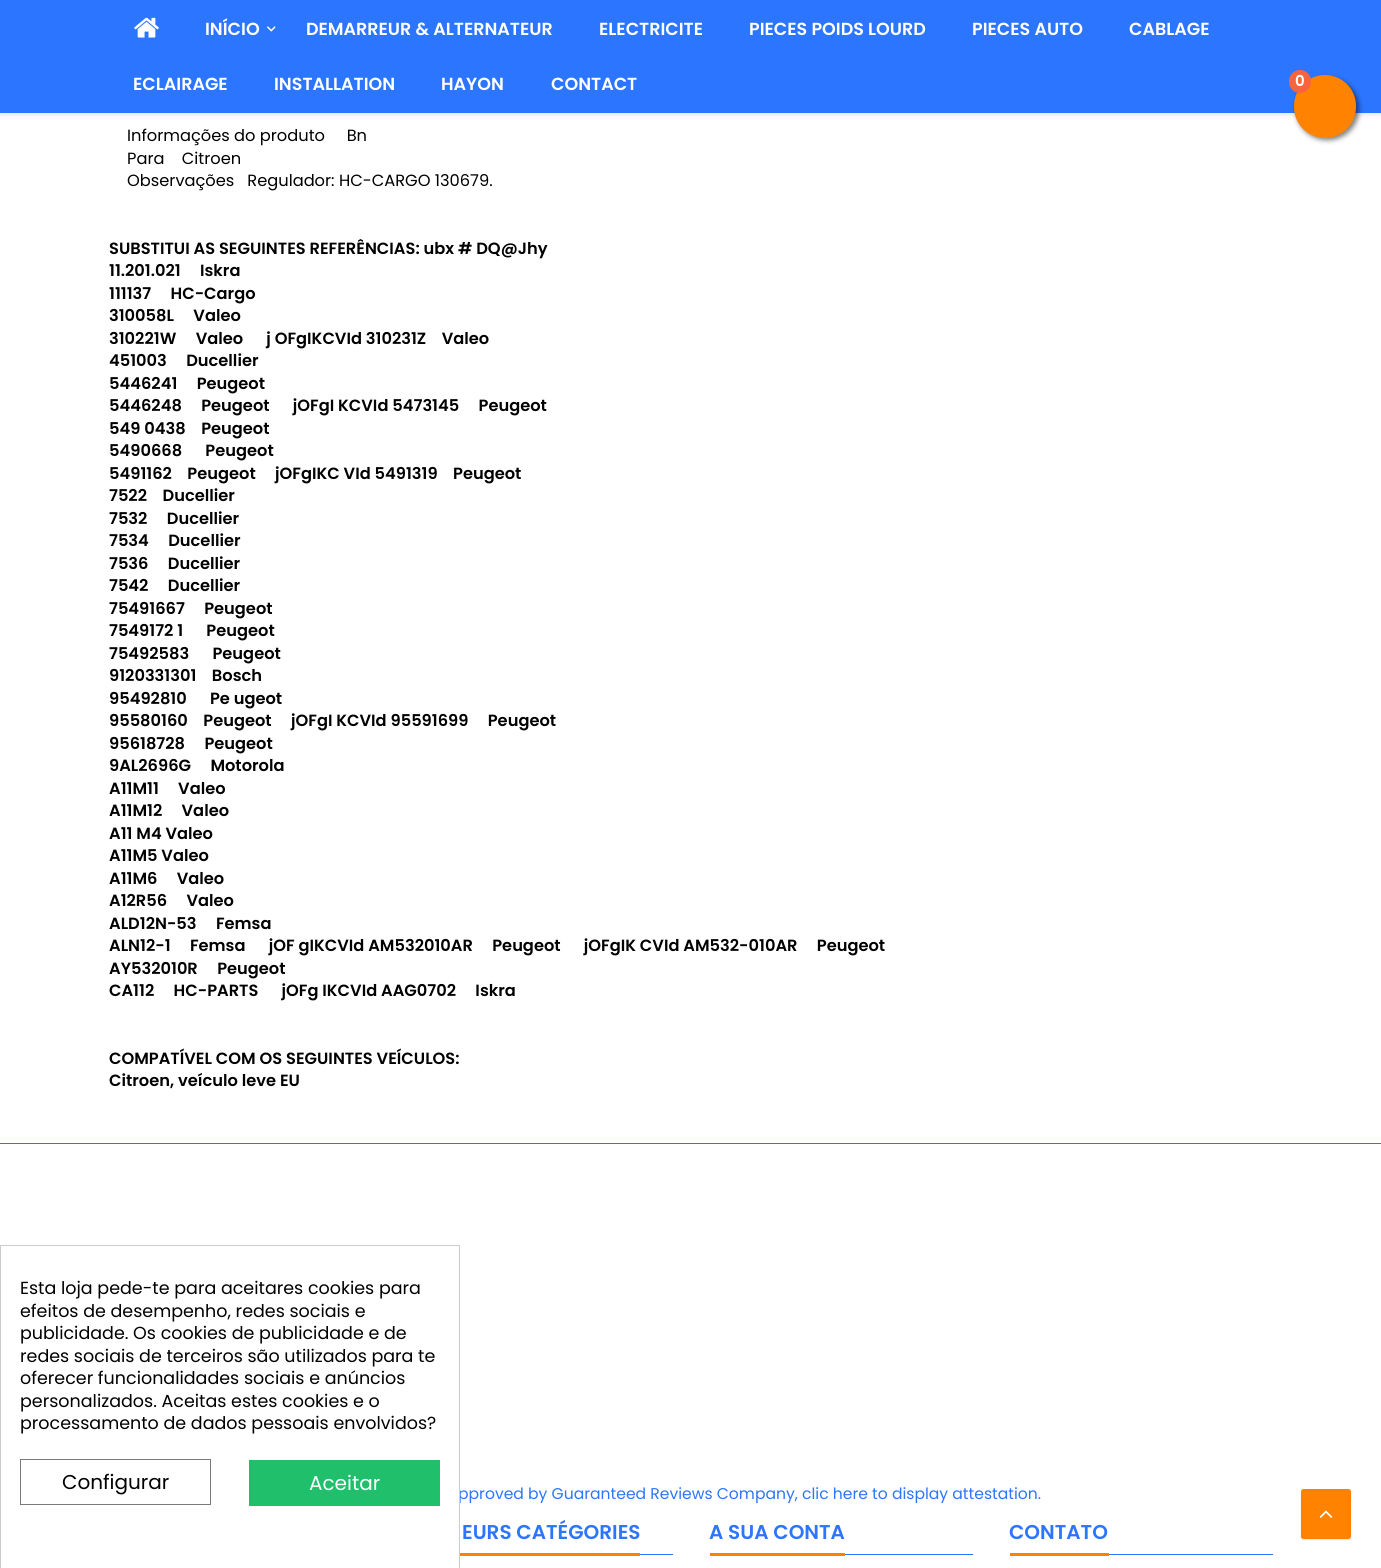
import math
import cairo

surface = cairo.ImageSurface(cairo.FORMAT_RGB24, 1381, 1568)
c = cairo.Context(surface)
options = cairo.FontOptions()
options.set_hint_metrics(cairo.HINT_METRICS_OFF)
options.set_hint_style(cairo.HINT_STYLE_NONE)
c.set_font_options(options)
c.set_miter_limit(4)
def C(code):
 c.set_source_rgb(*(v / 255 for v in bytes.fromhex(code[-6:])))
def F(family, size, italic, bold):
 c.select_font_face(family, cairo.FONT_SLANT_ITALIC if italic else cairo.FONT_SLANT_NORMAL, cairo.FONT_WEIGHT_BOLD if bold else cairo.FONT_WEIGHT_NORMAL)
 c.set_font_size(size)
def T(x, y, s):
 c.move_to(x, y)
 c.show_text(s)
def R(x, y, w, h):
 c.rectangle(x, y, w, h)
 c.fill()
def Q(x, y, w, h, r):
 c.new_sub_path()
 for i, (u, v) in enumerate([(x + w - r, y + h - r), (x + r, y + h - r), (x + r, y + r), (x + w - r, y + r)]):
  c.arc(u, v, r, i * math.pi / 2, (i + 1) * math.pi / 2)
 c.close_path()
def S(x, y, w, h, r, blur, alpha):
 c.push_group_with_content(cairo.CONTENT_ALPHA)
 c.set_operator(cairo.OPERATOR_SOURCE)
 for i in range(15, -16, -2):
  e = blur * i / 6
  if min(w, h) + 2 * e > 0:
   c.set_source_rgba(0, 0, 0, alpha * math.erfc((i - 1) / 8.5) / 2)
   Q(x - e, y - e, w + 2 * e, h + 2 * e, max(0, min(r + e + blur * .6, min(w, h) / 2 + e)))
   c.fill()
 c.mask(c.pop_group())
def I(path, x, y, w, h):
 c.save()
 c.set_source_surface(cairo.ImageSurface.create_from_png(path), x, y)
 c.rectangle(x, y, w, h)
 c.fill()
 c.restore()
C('ffffff')
c.paint()
C('000000')
S(0,3,1381,112,0,2.5,.1)
C('2c75ff')
R(0,0,1381,113)
I('1.png',134,17,25,21)
F('Poppins SemiBold',17.5,0,0)
C('ffffff')
T(205,35,'INÍCIO')
I('2.png',267,26,9,6)
T(306,35,'DEMARREUR & ALTERNATEUR')
T(599,35,'ELECTRICITE')
T(749,35,'PIECES POIDS LOURD')
T(972,35,'PIECES AUTO')
T(1129,35,'CABLAGE')
T(133,90,'ECLAIRAGE')
T(274,90,'INSTALLATION')
T(441,90,'HAYON')
T(551,90,'CONTACT')
C('000000')
S(1296,78,63,62,31,2.5,.5)
C('ff8300')
Q(1294,75,62,63,31)
c.fill()
C('f8653d')
Q(1289,70,22,23,11)
c.fill()
F('Poppins SemiBold',15,0,0)
C('ffffff')
T(1295,86,'0')
F('Poppins',16.25,0,0)
C('000000')
T(127,141,'Informações do produto     Bn')
T(127,164,'Para    Citroen')
T(127,186,'Observações   Regulador: HC-CARGO 130679.')
F('Poppins SemiBold',16.25,0,0)
T(109,254,'SUBSTITUI AS SEGUINTES REFERÊNCIAS: ubx # DQ@Jhy')
T(109,276,'11.201.021     Iskra')
T(109,299,'111137     HC-Cargo')
T(109,321,'310058L     Valeo')
T(109,344,'310221W     Valeo      j OFgIKCVId 310231Z    Valeo')
T(109,366,'451003     Ducellier')
T(109,389,'5446241     Peugeot')
T(109,411,'5446248     Peugeot      jOFgI KCVId 5473145     Peugeot')
T(109,434,'549 0438    Peugeot')
T(109,456,'5490668      Peugeot')
T(109,479,'5491162    Peugeot     jOFgIKC VId 5491319    Peugeot')
T(109,501,'7522    Ducellier')
T(109,524,'7532     Ducellier')
T(109,546,'7534     Ducellier')
T(109,569,'7536     Ducellier')
T(109,591,'7542     Ducellier')
T(109,614,'75491667     Peugeot')
T(109,636,'7549172 1      Peugeot')
T(109,659,'75492583      Peugeot')
T(109,681,'9120331301    Bosch')
T(109,704,'95492810      Pe ugeot')
T(109,726,'95580160    Peugeot     jOFgI KCVId 95591699     Peugeot')
T(109,749,'95618728     Peugeot')
T(109,771,'9AL2696G     Motorola')
T(109,794,'A11M11     Valeo')
T(109,816,'A11M12     Valeo')
T(109,839,'A11 M4 Valeo')
T(109,861,'A11M5 Valeo')
T(109,884,'A11M6     Valeo')
T(109,906,'A12R56     Valeo')
T(109,929,'ALD12N-53     Femsa')
T(109,951,'ALN12-1     Femsa      jOF gIKCVId AM532010AR     Peugeot      jOFgIK CVId AM532-010AR     Peugeot')
T(109,974,'AY532010R     Peugeot')
T(109,996,'CA112     HC-PARTS      jOFg IKCVId AAG0702     Iskra')
T(109,1064,'COMPATÍVEL COM OS SEGUINTES VEÍCULOS:')
T(109,1086,'Citroen, veículo leve EU')
C('2c75ff')
R(0,1143,1381,1)
F('Poppins',15.6,0,0)
T(458,1499,'pproved by Guaranteed Reviews Company, clic here to display attestation.')
C('000000')
S(1301,1490,50,50,2.5,.5,.1)
C('ff8300')
Q(1301,1489,50,50,2.5)
c.fill()
I('3.png',1319,1510,14,8)
C('2c75ff')
R(640,1554,33,1)
C('ff8300')
R(460,1553,180,3)
F('Poppins SemiBold',20,0,0)
C('2c75ff')
T(462,1539,'EURS CATÉGORIES')
R(845,1554,128,1)
C('ff8300')
R(710,1553,135,3)
C('2c75ff')
T(709,1539,'A SUA CONTA')
R(1109,1554,164,1)
C('ff8300')
R(1010,1553,99,3)
C('2c75ff')
T(1009,1539,'CONTATO')
C('ffffff')
R(458,1490,1,13)
c.rectangle(.5,1245.5,459,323)
C('cccccc')
c.set_line_width(1)
c.stroke()
F('Poppins',17.5,0,0)
C('000000')
T(20,1294,'Esta loja pede-te para aceitares cookies para')
T(20,1317,'efeitos de desempenho, redes sociais e')
T(20,1339,'publicidade. Os cookies de publicidade e de')
T(20,1362,'redes sociais de terceiros são utilizados para te')
T(20,1384,'oferecer funcionalidades sociais e anúncios')
T(20,1407,'personalizados. Aceitas estes cookies e o')
T(20,1429,'processamento de dados pessoais envolvidos?')
c.rectangle(20.5,1459.5,190,45)
C('7a7a7a')
c.stroke()
F('Poppins',20,0,0)
C('000000')
T(62,1489,'Configurar')
C('20bf6b')
R(249,1460,191,46)
C('ffffff')
T(309,1490,'Aceitar')
surface.write_to_png('o.png')
